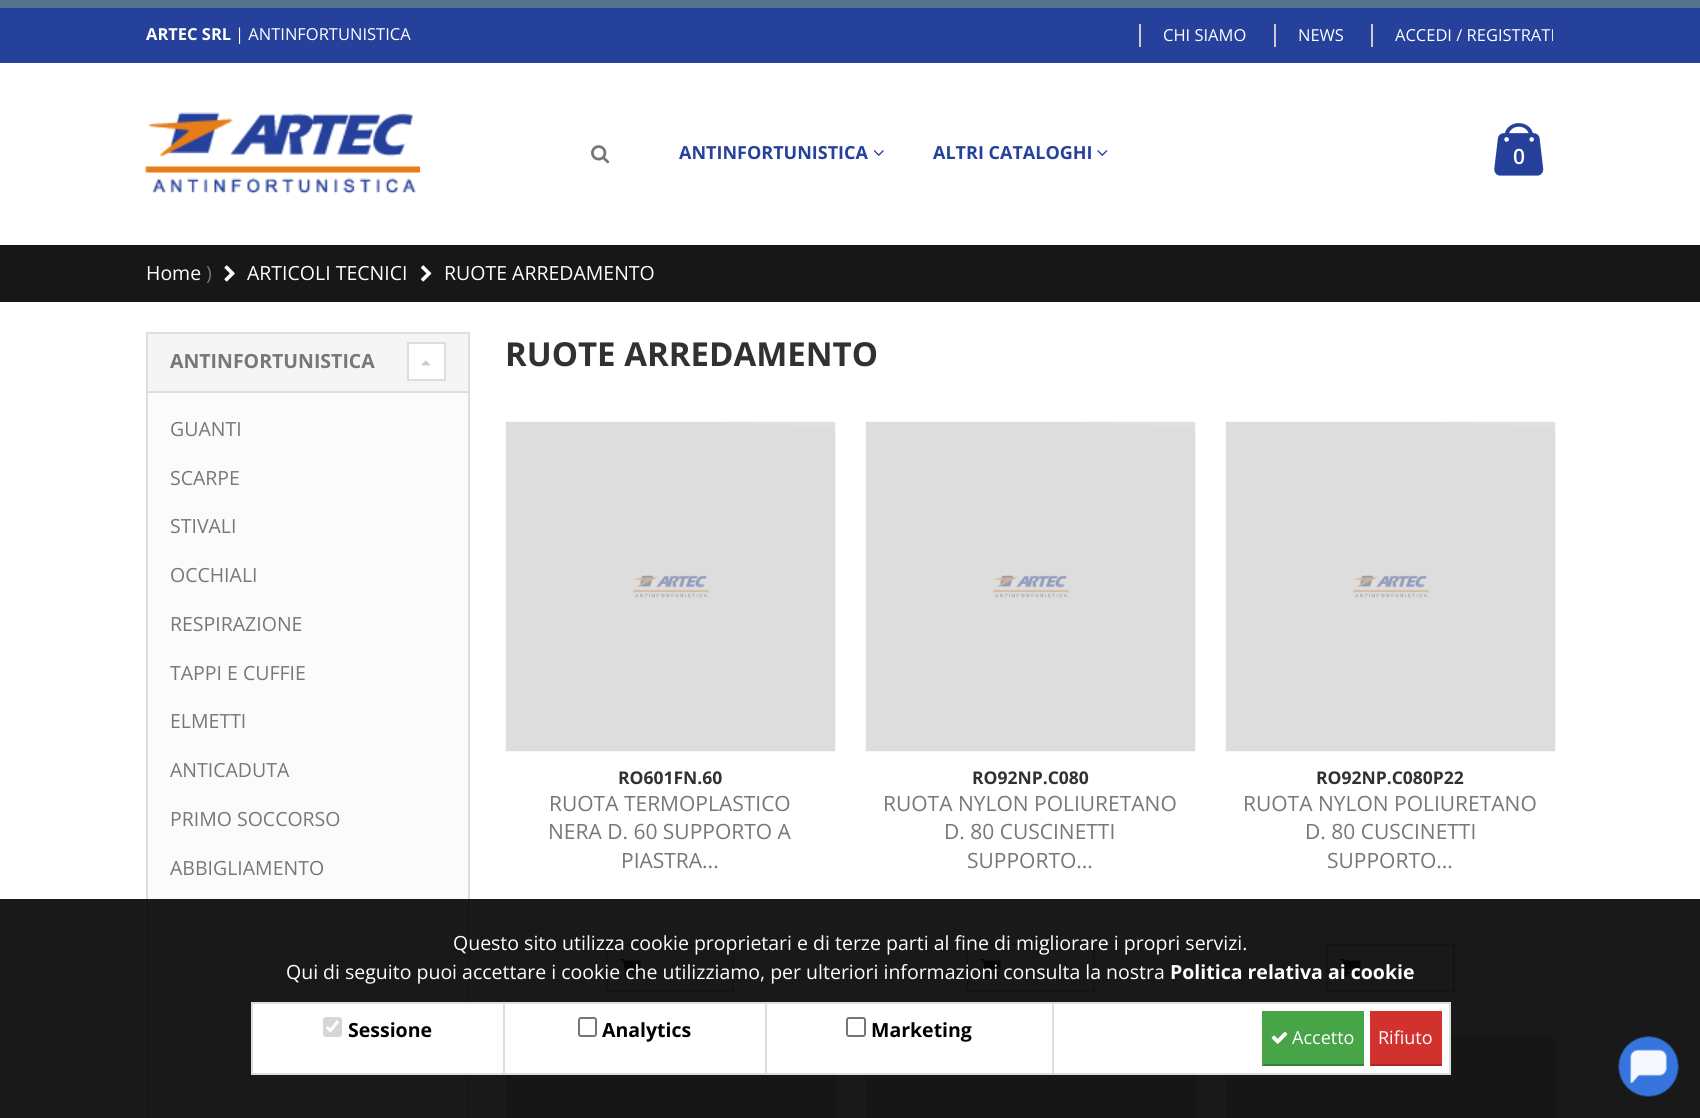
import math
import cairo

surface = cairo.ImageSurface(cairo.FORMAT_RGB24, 1700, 1118)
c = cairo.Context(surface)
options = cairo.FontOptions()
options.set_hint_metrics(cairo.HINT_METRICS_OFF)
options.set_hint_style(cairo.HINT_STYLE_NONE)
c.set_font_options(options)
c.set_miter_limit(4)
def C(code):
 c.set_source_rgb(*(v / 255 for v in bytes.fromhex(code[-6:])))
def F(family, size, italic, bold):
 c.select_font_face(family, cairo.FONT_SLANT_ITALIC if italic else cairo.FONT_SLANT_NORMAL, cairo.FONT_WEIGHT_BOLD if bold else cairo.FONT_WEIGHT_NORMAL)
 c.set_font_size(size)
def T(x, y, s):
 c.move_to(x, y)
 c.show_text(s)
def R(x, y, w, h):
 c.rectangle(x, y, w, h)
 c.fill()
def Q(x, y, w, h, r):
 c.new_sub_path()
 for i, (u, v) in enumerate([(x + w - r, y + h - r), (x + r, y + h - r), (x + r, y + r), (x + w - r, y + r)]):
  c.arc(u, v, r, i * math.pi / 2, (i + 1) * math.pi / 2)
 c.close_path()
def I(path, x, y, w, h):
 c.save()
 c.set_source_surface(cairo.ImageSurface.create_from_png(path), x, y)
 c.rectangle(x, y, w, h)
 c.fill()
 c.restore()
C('ffffff')
c.paint()
C('56738e')
R(0,0,1700,8)
C('25419b')
R(0,8,1700,55)
F('Open Sans',16.5,0,1)
C('ffffff')
T(146,40,'ARTEC SRL')
F('Open Sans',16.5,0,0)
T(235,40,'| ANTINFORTUNISTICA')
C('cccccc')
R(1139,24,2,23)
C('ffffff')
T(1163,41,'CHI SIAMO')
C('cccccc')
R(1274,24,2,23)
C('ffffff')
T(1298,41,'NEWS')
C('cccccc')
R(1371,24,2,23)
C('ffffff')
T(1395,41,'ACCEDI / REGISTRATI')
I('1.png',145,112,275,82)
I('2.png',591,145,19,19)
F('Open Sans',18,0,1)
C('25419b')
T(679,159,'ANTINFORTUNISTICA')
I('3.png',873,150,11,6)
T(933,159,'ALTRI CATALOGHI')
I('4.png',1097,150,11,6)
I('5.png',1494,123,50,53)
F('Open Sans SemiBold',21,0,0)
C('ffffff')
T(1513,164,'0')
C('171717')
R(0,245,1700,57)
F('Open Sans',19.5,0,0)
C('ffffff')
T(146,280,'Home')
C('777777')
T(206,280,')')
I('6.png',224,265,11,17)
C('ffffff')
T(247,280,'ARTICOLI TECNICI')
I('7.png',420,265,12,17)
T(444,280,'RUOTE ARREDAMENTO')
C('f5f5f5')
c.rectangle(147,333,322,59)
c.fill_preserve()
C('dddddd')
c.stroke()
F('Open Sans',19.5,0,1)
C('777777')
T(170,368,'ANTINFORTUNISTICA')
C('ffffff')
c.rectangle(408,343,37,37)
c.fill_preserve()
C('dddddd')
c.stroke()
I('8.png',421,360,9,6)
C('fbfbfb')
R(148,393,320,725)
C('dddddd')
R(468,393,2,725)
R(146,393,2,725)
F('Open Sans',19.5,0,0)
C('777777')
T(170,436,'GUANTI')
T(170,485,'SCARPE')
T(170,533,'STIVALI')
T(170,582,'OCCHIALI')
T(170,631,'RESPIRAZIONE')
T(170,680,'TAPPI E CUFFIE')
T(170,728,'ELMETTI')
T(170,777,'ANTICADUTA')
T(170,826,'PRIMO SOCCORSO')
T(170,875,'ABBIGLIAMENTO')
F('Open Sans',33,0,1)
C('313131')
T(505,366,'RUOTE ARREDAMENTO')
I('9.png',505,421,331,331)
F('Open Sans',17.5,0,1)
T(618,784,'RO601FN.60')
F('Open Sans',21,0,0)
C('777777')
T(549,811,'RUOTA TERMOPLASTICO')
T(548,839,'NERA D. 60 SUPPORTO A')
T(621,868,'PIASTRA...')
c.rectangle(607,945,126,46)
C('cccccc')
c.stroke()
I('10.png',619,958,22,19)
I('11.png',865,421,331,331)
F('Open Sans',17.5,0,1)
C('313131')
T(972,784,'RO92NP.C080')
F('Open Sans',21,0,0)
C('777777')
T(883,811,'RUOTA NYLON POLIURETANO')
T(944,839,'D. 80 CUSCINETTI')
T(967,868,'SUPPORTO...')
c.rectangle(967,945,127,46)
C('cccccc')
c.stroke()
I('10.png',979,958,22,19)
I('9.png',1225,421,331,331)
F('Open Sans',17.5,0,1)
C('313131')
T(1316,784,'RO92NP.C080P22')
F('Open Sans',21,0,0)
C('777777')
T(1243,811,'RUOTA NYLON POLIURETANO')
T(1305,839,'D. 80 CUSCINETTI')
T(1327,868,'SUPPORTO...')
c.rectangle(1327,945,127,46)
C('cccccc')
c.stroke()
I('10.png',1339,958,22,19)
I('12.png',505,1075,331,43)
I('12.png',865,1075,331,43)
I('13.png',1225,1036,331,82)
c.set_source_rgba(0,0,0,0.9)
R(0,899,1700,219)
F('Open Sans',19.5,0,0)
C('ffffff')
T(453,950,'Questo sito utilizza cookie proprietari e di terze parti al fine di migliorare i propri servizi.')
T(286,979,'Qui di seguito puoi accettare i cookie che utilizziamo, per ulteriori informazioni consulta la nostra')
F('Open Sans',19.5,0,1)
T(1170,979,'Politica relativa ai cookie')
R(253,1004,1196,69)
C('dddddd')
R(251,1002,1200,2)
R(1449,1002,2,72)
R(251,1073,1200,2)
R(251,1002,2,72)
C('d6d6d6')
Q(323,1017,19,20,3)
c.fill()
c.new_path()
c.move_to(326.5,1027)
c.line_to(330.5,1030.5)
c.line_to(338,1021)
C('ffffff')
c.set_line_width(3.1)
c.stroke()
C('000000')
T(348,1037,'Sessione')
C('dddddd')
R(503,1002,2,72)
Q(579,1018,17,18,2)
C('767676')
c.set_line_width(2)
c.stroke()
C('000000')
T(602,1037,'Analytics')
C('dddddd')
R(765,1002,2,72)
Q(847,1018,18,18,2)
C('767676')
c.stroke()
C('000000')
T(871,1037,'Marketing')
C('dddddd')
R(1052,1002,2,72)
C('47a447')
R(1264,1011,100,53)
C('388038')
R(1262,1064,102,2)
C('47a447')
R(1262,1011,2,54)
I('14.png',1271,1032,17,12)
F('Open Sans',18,0,0)
C('ffffff')
T(1292,1044,'Accetto')
C('d2322d')
R(1372,1011,70,53)
C('a82824')
R(1370,1064,72,2)
C('d2322d')
R(1370,1011,2,54)
C('ffffff')
T(1378,1044,'Rifiuto')
I('15.png',1618,1036,61,61)
surface.write_to_png('o.png')
